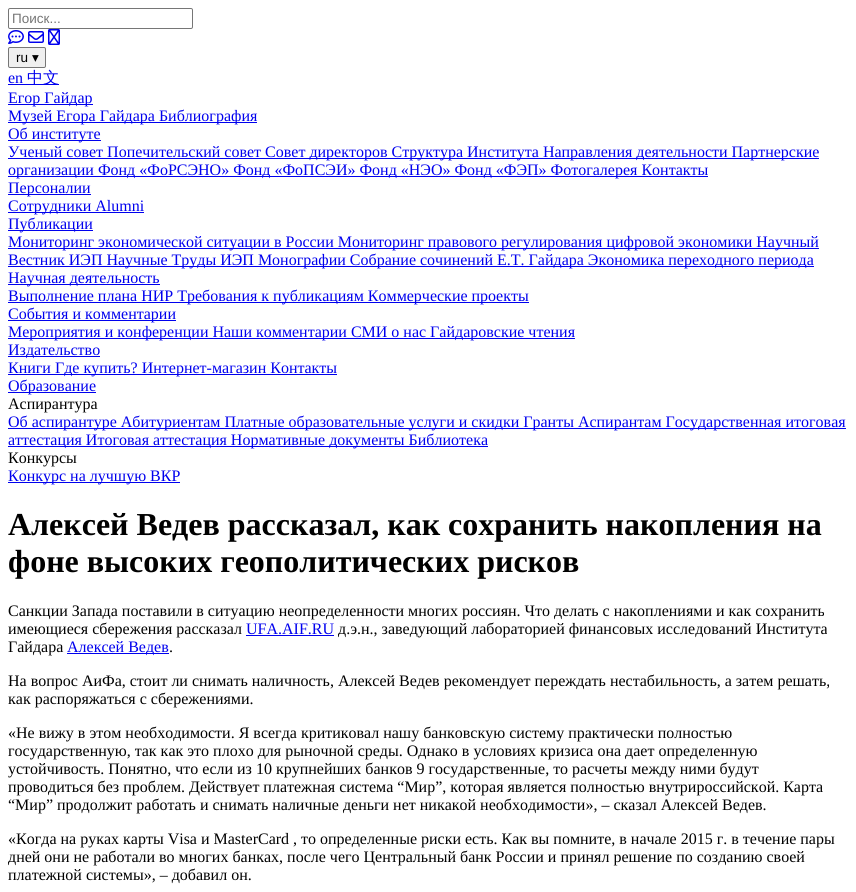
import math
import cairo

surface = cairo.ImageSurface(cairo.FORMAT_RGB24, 856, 892)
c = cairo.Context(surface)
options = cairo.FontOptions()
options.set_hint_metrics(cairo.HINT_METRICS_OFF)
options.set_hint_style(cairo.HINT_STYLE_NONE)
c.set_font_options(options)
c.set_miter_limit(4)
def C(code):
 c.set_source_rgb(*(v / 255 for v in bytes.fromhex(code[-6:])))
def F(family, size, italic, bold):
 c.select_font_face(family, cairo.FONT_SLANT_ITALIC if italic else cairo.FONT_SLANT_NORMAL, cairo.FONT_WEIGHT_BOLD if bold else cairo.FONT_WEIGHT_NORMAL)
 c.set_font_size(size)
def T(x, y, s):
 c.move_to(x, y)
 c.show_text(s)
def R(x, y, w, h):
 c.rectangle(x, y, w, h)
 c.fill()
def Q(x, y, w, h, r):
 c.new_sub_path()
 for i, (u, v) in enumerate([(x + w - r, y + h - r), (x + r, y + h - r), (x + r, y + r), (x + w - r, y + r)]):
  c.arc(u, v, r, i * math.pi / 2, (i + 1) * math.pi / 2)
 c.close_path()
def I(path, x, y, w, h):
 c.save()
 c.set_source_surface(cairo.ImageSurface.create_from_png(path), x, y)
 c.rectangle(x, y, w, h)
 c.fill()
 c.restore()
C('ffffff')
c.paint()
Q(8.5,8.5,184,20,1.5)
C('767676')
c.set_line_width(1)
c.stroke()
F('Liberation Sans',13.5,0,0)
C('757575')
T(12,23,'Поиск...')
I('1.png',8,30,16,14)
I('2.png',28,31,16,12)
I('3.png',48,29,12,16)
C('efefef')
Q(8.5,47.5,37,20,1.5)
c.fill_preserve()
C('767676')
c.stroke()
C('000000')
T(16,62,'ru')
F('DejaVu Sans',13.5,0,0)
T(32,62,'▾')
F('Liberation Serif',16,0,0)
C('0000ee')
T(8,83,'en')
R(8,84,51,1)
F('WenQuanYi Zen Hei Medium',16,0,0)
T(27,83,'中文')
R(8,104,85,1)
F('Liberation Serif',16,0,0)
T(8,103,'Егор Гайдар')
R(8,122,249,1)
T(8,121,'Музей Егора Гайдара Библиография')
R(8,140,93,1)
T(8,139,'Об институте')
R(8,158,811,1)
T(8,157,'Ученый совет Попечительский совет Совет директоров Структура Института Направления деятельности Партнерские')
R(8,176,700,1)
T(8,175,'организации Фонд «ФоРСЭНО» Фонд «ФоПСЭИ» Фонд «НЭО» Фонд «ФЭП» Фотогалерея Контакты')
R(8,194,83,1)
T(8,193,'Персоналии')
R(8,212,136,1)
T(8,211,'Сотрудники Alumni')
R(8,230,85,1)
T(8,229,'Публикации')
R(8,248,811,1)
T(8,247,'Мониторинг экономической ситуации в России Мониторинг правового регулирования цифровой экономики Научный')
R(8,266,806,1)
T(8,265,'Вестник ИЭП Научные Труды ИЭП Монографии Собрание сочинений Е.Т. Гайдара Экономика переходного периода')
R(8,284,152,1)
T(8,283,'Научная деятельность')
R(8,302,521,1)
T(8,301,'Выполнение плана НИР Требования к публикациям Коммерческие проекты')
R(8,320,168,1)
T(8,319,'События и комментарии')
R(8,338,567,1)
T(8,337,'Мероприятия и конференции Наши комментарии СМИ о нас Гайдаровские чтения')
R(8,356,92,1)
T(8,355,'Издательство')
R(8,374,329,1)
T(8,373,'Книги Где купить? Интернет-магазин Контакты')
R(8,392,88,1)
T(8,391,'Образование')
C('000000')
T(8,409,'Аспирантура')
C('0000ee')
R(8,428,838,1)
T(8,427,'Об аспирантуре Абитуриентам Платные образовательные услуги и скидки Гранты Аспирантам Государственная итоговая')
R(8,446,480,1)
T(8,445,'аттестация Итоговая аттестация Нормативные документы Библиотека')
C('000000')
T(8,463,'Конкурсы')
C('0000ee')
R(8,482,172,1)
T(8,481,'Конкурс на лучшую ВКР')
F('Liberation Serif',32,0,1)
C('000000')
T(8,535,'Алексей Ведев рассказал, как сохранить накопления на')
T(8,572,'фоне высоких геополитических рисков')
F('Liberation Serif',16,0,0)
T(8,616,'Санкции Запада поставили в ситуацию неопределенности многих россиян. Что делать с накоплениями и как сохранить')
T(8,634,'имеющиеся сбережения рассказал')
C('0000ee')
T(246,634,'UFA.AIF.RU')
R(246,635,88,1)
C('000000')
T(338,634,'д.э.н., заведующий лабораторией финансовых исследований Института')
T(8,652,'Гайдара')
C('0000ee')
R(67,653,102,1)
T(67,652,'Алексей Ведев')
C('000000')
T(169,652,'.')
T(8,686,'На вопрос АиФа, стоит ли снимать наличность, Алексей Ведев рекомендует переждать нестабильность, а затем решать,')
T(8,704,'как распоряжаться с сбережениями.')
T(8,738,'«Не вижу в этом необходимости. Я всегда критиковал нашу банковскую систему практически полностью')
T(8,756,'государственную, так как это плохо для рыночной среды. Однако в условиях кризиса она дает определенную')
T(8,774,'устойчивость. Понятно, что если из 10 крупнейших банков 9 государственные, то расчеты между ними будут')
T(8,792,'проводиться без проблем. Действует платежная система “Мир”, которая является полностью внутрироссийской. Карта')
T(8,810,'“Мир” продолжит работать и снимать наличные деньги нет никакой необходимости», – сказал Алексей Ведев.')
T(8,844,'«Когда на руках карты Visa и MasterCard , то определенные риски есть. Как вы помните, в начале 2015 г. в течение пары')
T(8,862,'дней они не работали во многих банках, после чего Центральный банк России и принял решение по созданию своей')
T(8,880,'платежной системы», – добавил он.')
surface.write_to_png('o.png')
